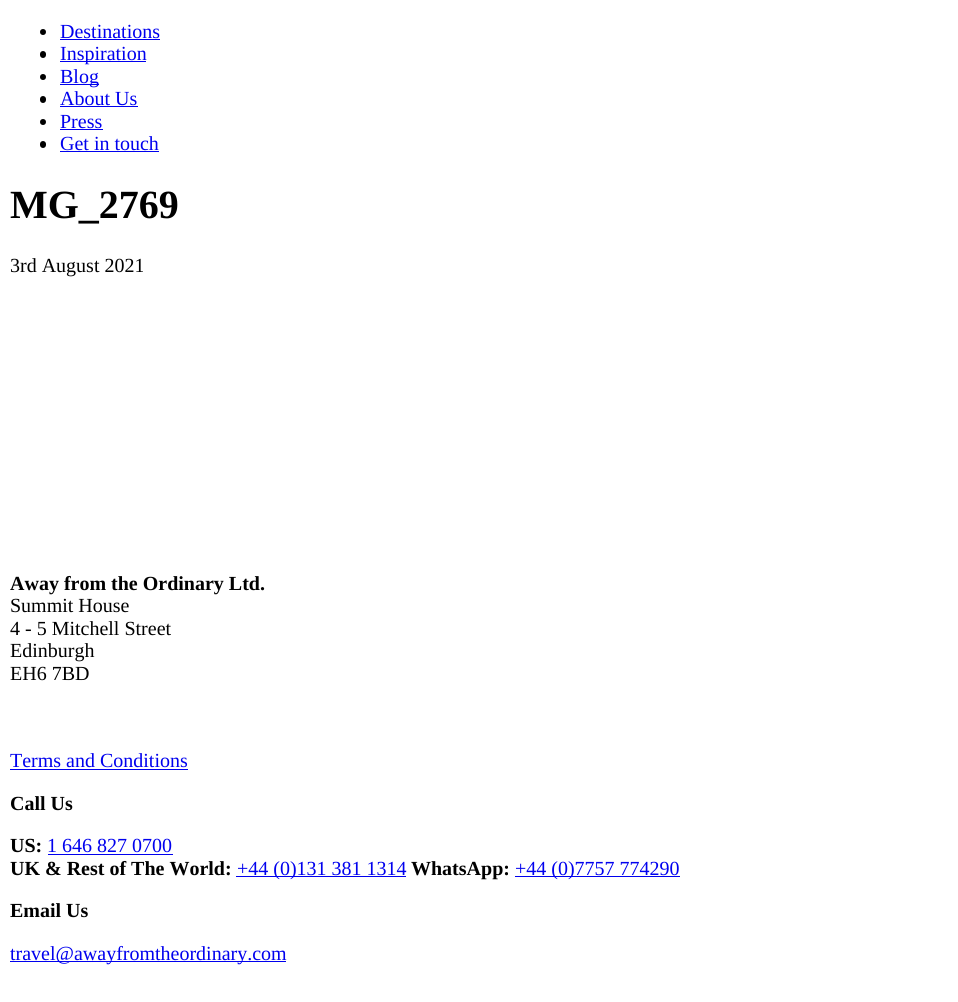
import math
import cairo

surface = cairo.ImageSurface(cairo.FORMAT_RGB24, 958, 1002)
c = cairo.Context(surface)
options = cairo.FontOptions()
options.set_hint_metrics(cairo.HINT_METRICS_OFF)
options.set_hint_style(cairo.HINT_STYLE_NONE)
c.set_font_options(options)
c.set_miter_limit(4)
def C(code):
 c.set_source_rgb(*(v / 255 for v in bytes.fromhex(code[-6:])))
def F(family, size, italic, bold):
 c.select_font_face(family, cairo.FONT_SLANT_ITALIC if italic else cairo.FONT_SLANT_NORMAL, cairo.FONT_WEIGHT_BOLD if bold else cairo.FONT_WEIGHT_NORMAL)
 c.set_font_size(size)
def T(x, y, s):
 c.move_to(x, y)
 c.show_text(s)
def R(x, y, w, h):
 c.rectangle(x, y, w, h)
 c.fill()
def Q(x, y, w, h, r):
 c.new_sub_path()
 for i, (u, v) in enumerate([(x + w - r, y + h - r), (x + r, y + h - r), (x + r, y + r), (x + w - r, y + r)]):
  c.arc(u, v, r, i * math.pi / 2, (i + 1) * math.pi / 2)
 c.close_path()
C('ffffff')
c.paint()
C('000000')
c.arc(43,32,3,0,2 * math.pi)
c.fill()
F('Liberation Serif',20,0,0)
C('0000ee')
T(60,38,'Destinations')
R(60,39,100,1)
C('000000')
Q(40,51,6,7,3)
c.fill()
C('0000ee')
R(60,61,86,1)
T(60,60,'Inspiration')
C('000000')
c.new_path()
c.arc(43,77,3,0,2 * math.pi)
c.fill()
C('0000ee')
R(60,84,39,1)
T(60,83,'Blog')
C('000000')
Q(40,96,6,7,3)
c.fill()
C('0000ee')
T(60,105,'About Us')
R(60,106,78,1)
C('000000')
c.new_path()
c.arc(43,122,3,0,2 * math.pi)
c.fill()
C('0000ee')
T(60,128,'Press')
R(60,129,43,1)
C('000000')
Q(40,141,6,7,3)
c.fill()
C('0000ee')
T(60,150,'Get in touch')
R(60,151,99,1)
F('Liberation Serif',40,0,1)
C('000000')
T(10,218,'MG_2769')
F('Liberation Serif',20,0,0)
T(10,272,'3rd August 2021')
F('Liberation Serif',20,0,1)
T(10,590,'Away from the Ordinary Ltd.')
F('Liberation Serif',20,0,0)
T(10,612,'Summit House')
T(10,635,'4 - 5 Mitchell Street')
T(10,657,'Edinburgh')
T(10,680,'EH6 7BD')
C('0000ee')
T(10,767,'Terms and Conditions')
R(10,769,178,1)
F('Liberation Serif',20,0,1)
C('000000')
T(10,810,'Call Us')
T(10,852,'US:')
F('Liberation Serif',20,0,0)
C('0000ee')
T(47,852,'1 646 827 0700')
R(48,854,125,1)
F('Liberation Serif',20,0,1)
C('000000')
T(10,875,'UK & Rest of The World:')
C('0000ee')
R(236,876,170,1)
F('Liberation Serif',20,0,0)
T(237,875,'+44 (0)131 381 1314')
F('Liberation Serif',20,0,1)
C('000000')
T(411,875,'WhatsApp:')
C('0000ee')
R(515,876,165,1)
F('Liberation Serif',20,0,0)
T(515,875,'+44 (0)7757 774290')
F('Liberation Serif',20,0,1)
C('000000')
T(10,917,'Email Us')
C('0000ee')
R(10,961,276,1)
F('Liberation Serif',20,0,0)
T(10,960,'travel@awayfromtheordinary.com')
surface.write_to_png('o.png')
